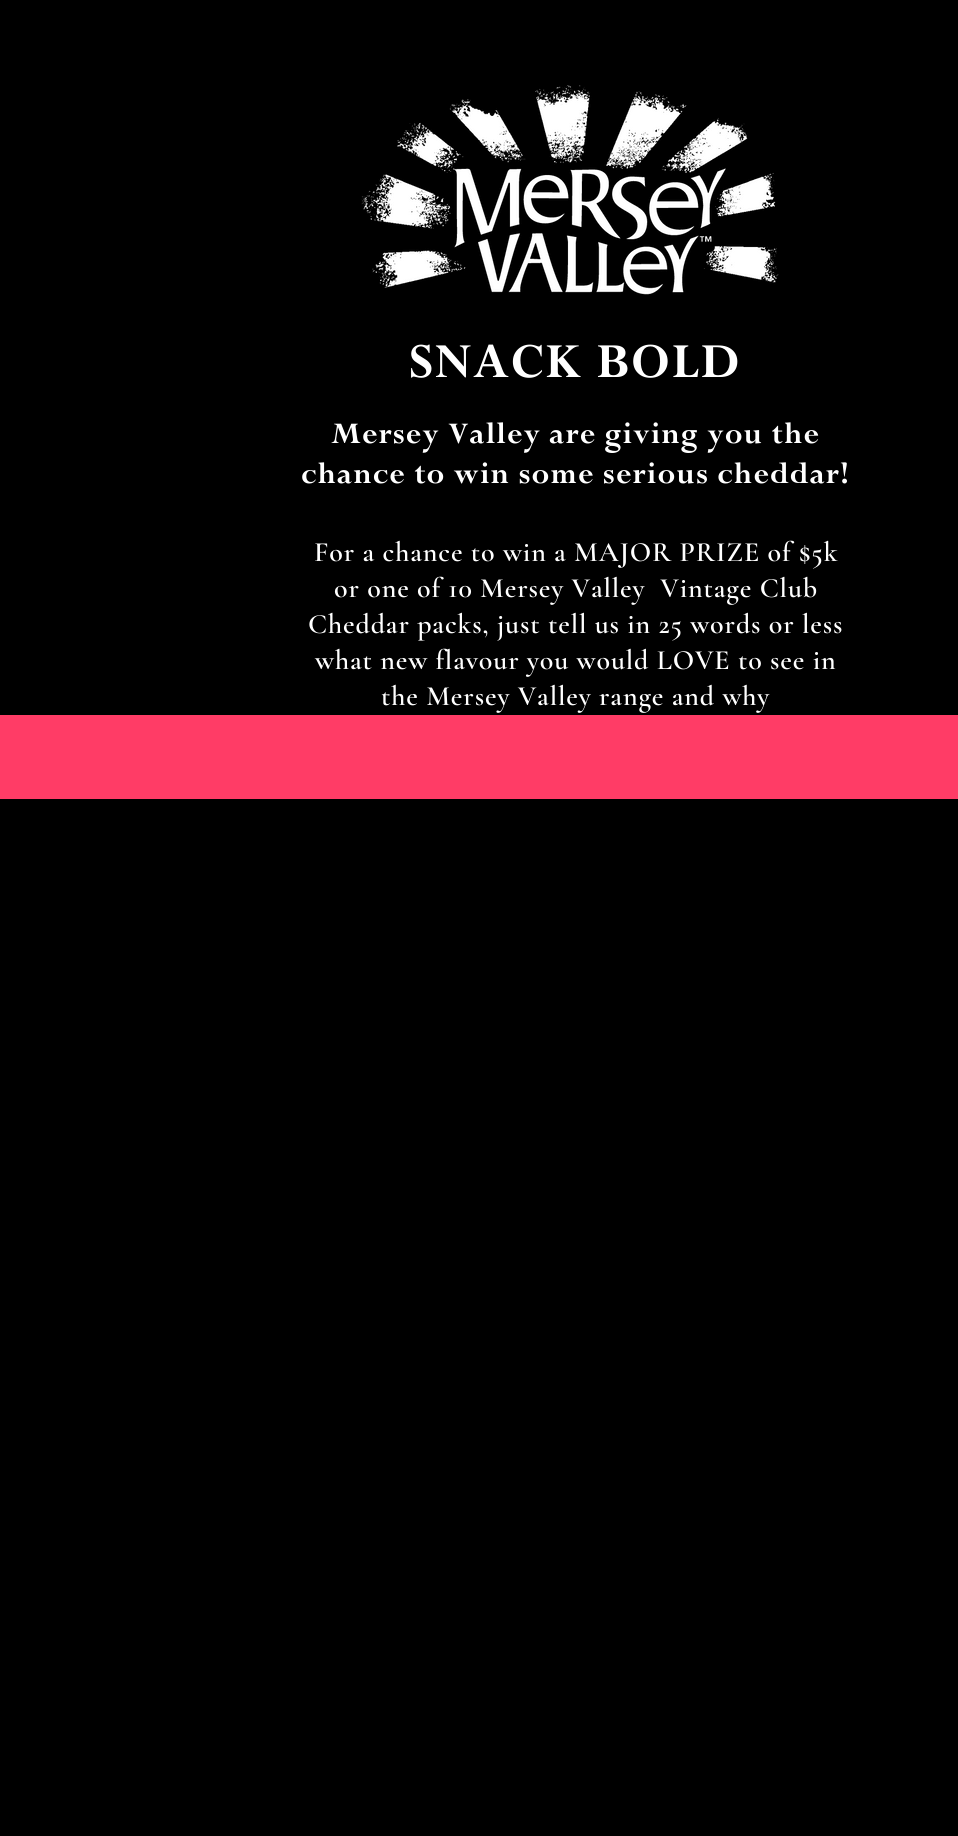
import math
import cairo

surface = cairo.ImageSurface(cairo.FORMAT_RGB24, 958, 1836)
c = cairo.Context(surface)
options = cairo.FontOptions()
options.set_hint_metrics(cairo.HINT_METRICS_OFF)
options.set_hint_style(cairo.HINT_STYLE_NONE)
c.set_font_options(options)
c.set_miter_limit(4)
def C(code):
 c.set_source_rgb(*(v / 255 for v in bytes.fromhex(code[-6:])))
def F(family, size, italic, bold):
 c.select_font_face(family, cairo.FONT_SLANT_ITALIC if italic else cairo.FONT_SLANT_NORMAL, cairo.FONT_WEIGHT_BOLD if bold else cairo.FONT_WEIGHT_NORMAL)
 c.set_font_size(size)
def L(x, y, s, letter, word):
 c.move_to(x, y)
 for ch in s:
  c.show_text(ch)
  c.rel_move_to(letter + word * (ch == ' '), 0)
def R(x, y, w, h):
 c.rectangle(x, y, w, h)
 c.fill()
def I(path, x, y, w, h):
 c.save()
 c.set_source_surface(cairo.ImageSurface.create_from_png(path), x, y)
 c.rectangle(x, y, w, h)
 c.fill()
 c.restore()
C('000000')
c.paint()
I('1.png',361,85,418,210)
F('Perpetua',54,0,1)
C('ffffff')
L(409,377,'SNACK BOLD',1.6,0)
F('Perpetua',33,0,1)
L(331,443,'Mersey Valley are giving you the',1,0)
L(301,483,'chance to win some serious cheddar!',1,0)
F('Cormorant Garamond SemiBold',28,0,0)
L(314,561,'For a chance to win a MAJOR PRIZE of $5k',.85,0)
L(334,597,'or one of 10 Mersey Valley  Vintage Club',.85,0)
L(308,633,'Cheddar packs, just tell us in 25 words or less',.85,0)
L(315,669,'what new flavour you would LOVE to see in',.85,0)
L(381,705,'the Mersey Valley range and why',.85,0)
C('ff3c66')
R(0,715,958,84)
surface.write_to_png('o.png')
